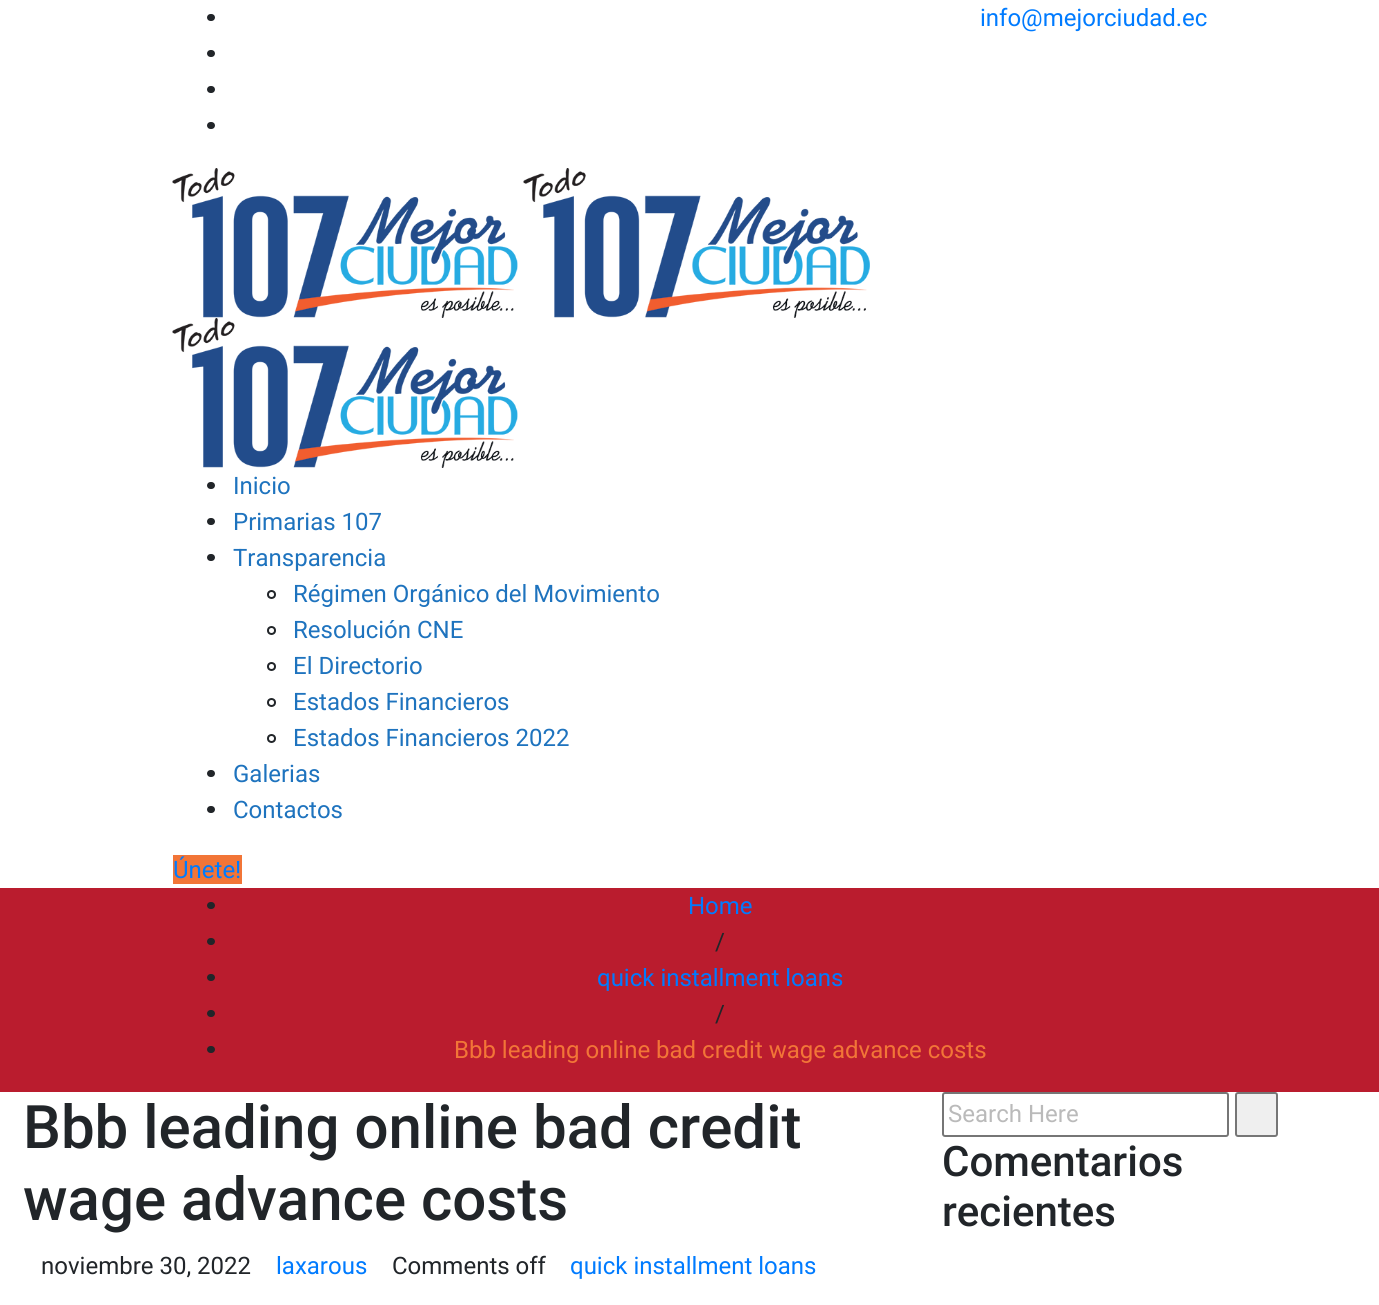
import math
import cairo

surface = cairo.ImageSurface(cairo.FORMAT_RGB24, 1379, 1305)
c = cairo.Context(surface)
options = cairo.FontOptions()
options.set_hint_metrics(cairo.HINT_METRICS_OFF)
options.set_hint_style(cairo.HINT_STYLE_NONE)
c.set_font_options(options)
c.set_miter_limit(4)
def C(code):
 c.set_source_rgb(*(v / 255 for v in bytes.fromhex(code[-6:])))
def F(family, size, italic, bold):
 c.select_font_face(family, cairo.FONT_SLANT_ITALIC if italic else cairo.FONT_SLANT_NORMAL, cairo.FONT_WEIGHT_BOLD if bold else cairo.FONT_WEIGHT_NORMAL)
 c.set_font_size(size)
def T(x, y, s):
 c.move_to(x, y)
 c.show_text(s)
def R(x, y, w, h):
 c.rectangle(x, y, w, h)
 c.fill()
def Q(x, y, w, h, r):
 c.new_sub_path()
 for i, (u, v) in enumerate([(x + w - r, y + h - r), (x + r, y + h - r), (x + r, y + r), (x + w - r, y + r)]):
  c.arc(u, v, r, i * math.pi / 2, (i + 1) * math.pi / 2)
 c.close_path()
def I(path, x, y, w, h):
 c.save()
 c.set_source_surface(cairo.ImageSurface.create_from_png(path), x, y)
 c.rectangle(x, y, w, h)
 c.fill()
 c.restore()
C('ffffff')
c.paint()
C('212529')
Q(207,14,8,7,3.5)
c.fill()
Q(207,50,8,7,3.5)
c.fill()
Q(207,86,8,7,3.5)
c.fill()
Q(207,122,8,7,3.5)
c.fill()
F('Roboto',24,0,0)
C('007bff')
T(980,26,'info@mejorciudad.ec')
I('1.png',172,168,346,150)
I('2.png',523,168,347,150)
I('1.png',172,318,346,150)
C('212529')
Q(207,482,8,7,3.5)
c.fill()
C('1e73be')
T(233,494,'Inicio')
C('212529')
Q(207,518,8,7,3.5)
c.fill()
C('1e73be')
T(233,530,'Primarias 107')
C('212529')
Q(207,554,8,7,3.5)
c.fill()
C('1e73be')
T(233,566,'Transparencia')
c.new_path()
c.arc(271.5,594.5,3.5,0,2 * math.pi)
C('212529')
c.stroke()
C('1e73be')
T(293,602,'Régimen Orgánico del Movimiento')
c.new_path()
c.arc(271.5,630.5,3.5,0,2 * math.pi)
C('212529')
c.stroke()
C('1e73be')
T(293,638,'Resolución CNE')
c.new_path()
c.arc(271.5,666.5,3.5,0,2 * math.pi)
C('212529')
c.stroke()
C('1e73be')
T(293,674,'El Directorio')
c.new_path()
c.arc(271.5,702.5,3.5,0,2 * math.pi)
C('212529')
c.stroke()
C('1e73be')
T(293,710,'Estados Financieros')
c.new_path()
c.arc(271.5,738.5,3.5,0,2 * math.pi)
C('212529')
c.stroke()
C('1e73be')
T(293,746,'Estados Financieros 2022')
C('212529')
Q(207,770,8,7,3.5)
c.fill()
C('1e73be')
T(233,782,'Galerias')
C('212529')
Q(207,806,8,7,3.5)
c.fill()
C('1e73be')
T(233,818,'Contactos')
C('f27537')
R(173,855,69,29)
C('007bff')
T(173,878,'Únete!')
C('ba1c2e')
R(0,888,1379,204)
C('212529')
Q(207,902,8,7,3.5)
c.fill()
C('007bff')
T(688,914,'Home')
C('212529')
Q(207,938,8,7,3.5)
c.fill()
T(715,950,'/')
Q(207,974,8,7,3.5)
c.fill()
C('007bff')
T(597,986,'quick installment loans')
C('212529')
Q(207,1010,8,7,3.5)
c.fill()
T(715,1022,'/')
Q(207,1046,8,7,3.5)
c.fill()
C('f27537')
T(454,1058,'Bbb leading online bad credit wage advance costs')
F('Roboto Medium',60,0,0)
C('212529')
T(23,1148,'Bbb leading online bad credit')
T(23,1220,'wage advance costs')
F('Roboto',24,0,0)
T(41,1274,'noviembre 30, 2022')
C('007bff')
T(276,1274,'laxarous')
C('212529')
T(392,1274,'Comments off')
C('007bff')
T(570,1274,'quick installment loans')
Q(943,1093,285,43,2)
C('767676')
c.stroke()
C('bababa')
T(948,1122,'Search Here')
C('efefef')
Q(1236,1093,41,43,2)
c.fill_preserve()
C('767676')
c.stroke()
F('Roboto Medium',42,0,0)
C('212529')
T(942,1176,'Comentarios')
T(942,1226,'recientes')
surface.write_to_png('o.png')
